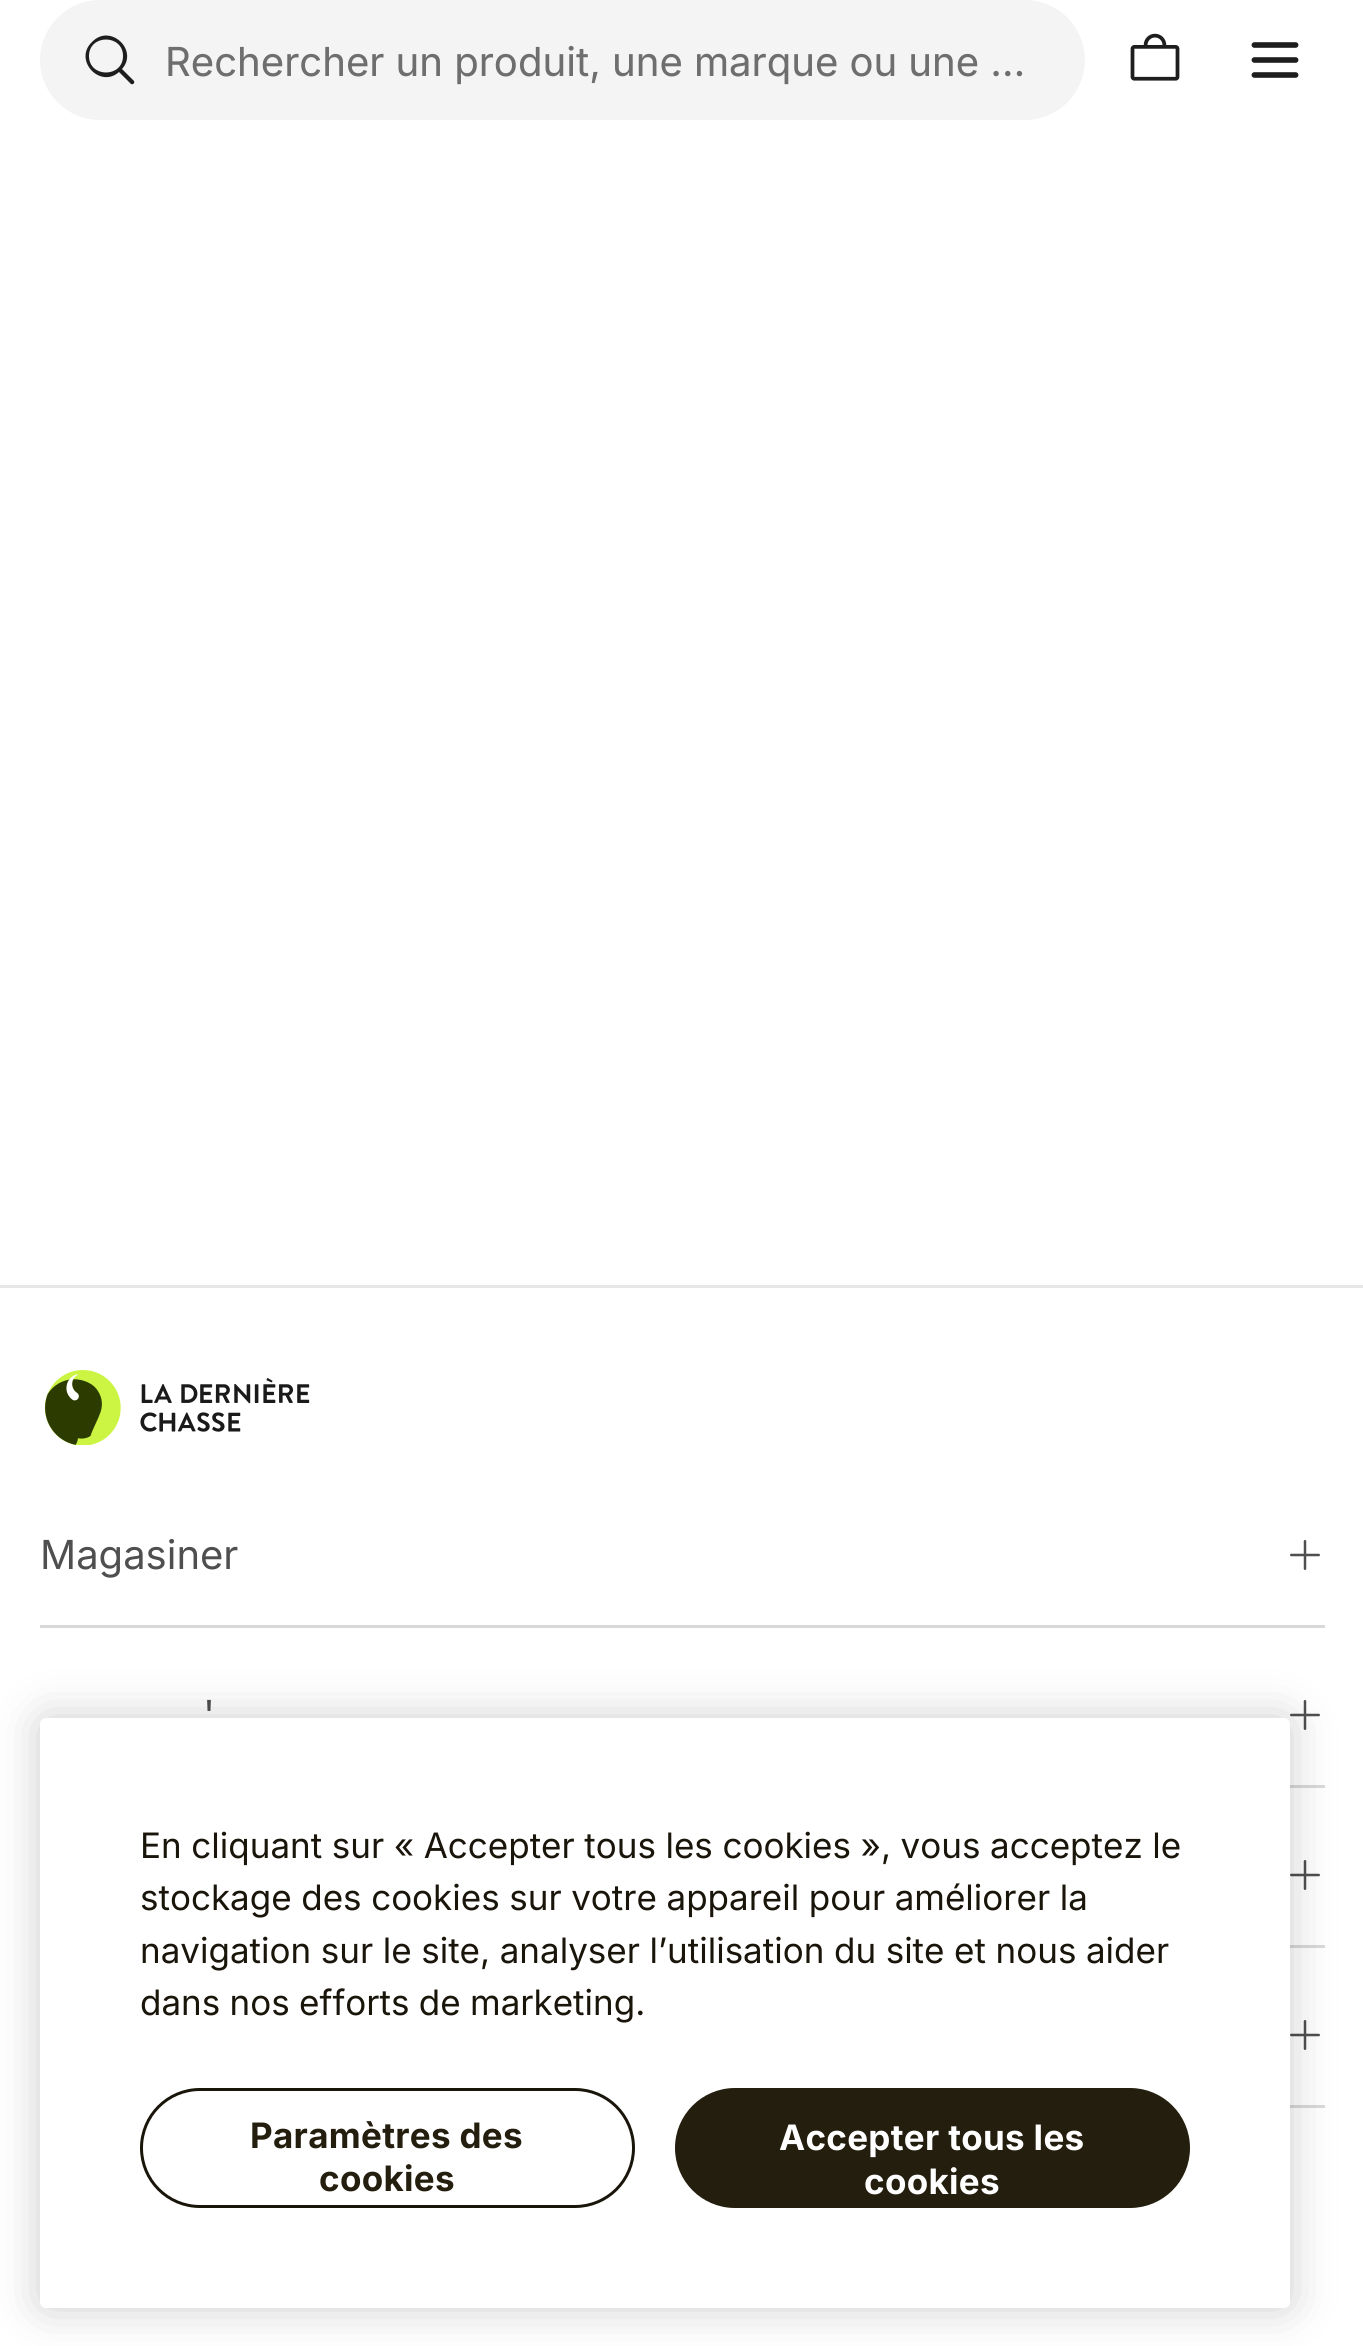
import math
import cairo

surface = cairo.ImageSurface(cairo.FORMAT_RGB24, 1363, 2346)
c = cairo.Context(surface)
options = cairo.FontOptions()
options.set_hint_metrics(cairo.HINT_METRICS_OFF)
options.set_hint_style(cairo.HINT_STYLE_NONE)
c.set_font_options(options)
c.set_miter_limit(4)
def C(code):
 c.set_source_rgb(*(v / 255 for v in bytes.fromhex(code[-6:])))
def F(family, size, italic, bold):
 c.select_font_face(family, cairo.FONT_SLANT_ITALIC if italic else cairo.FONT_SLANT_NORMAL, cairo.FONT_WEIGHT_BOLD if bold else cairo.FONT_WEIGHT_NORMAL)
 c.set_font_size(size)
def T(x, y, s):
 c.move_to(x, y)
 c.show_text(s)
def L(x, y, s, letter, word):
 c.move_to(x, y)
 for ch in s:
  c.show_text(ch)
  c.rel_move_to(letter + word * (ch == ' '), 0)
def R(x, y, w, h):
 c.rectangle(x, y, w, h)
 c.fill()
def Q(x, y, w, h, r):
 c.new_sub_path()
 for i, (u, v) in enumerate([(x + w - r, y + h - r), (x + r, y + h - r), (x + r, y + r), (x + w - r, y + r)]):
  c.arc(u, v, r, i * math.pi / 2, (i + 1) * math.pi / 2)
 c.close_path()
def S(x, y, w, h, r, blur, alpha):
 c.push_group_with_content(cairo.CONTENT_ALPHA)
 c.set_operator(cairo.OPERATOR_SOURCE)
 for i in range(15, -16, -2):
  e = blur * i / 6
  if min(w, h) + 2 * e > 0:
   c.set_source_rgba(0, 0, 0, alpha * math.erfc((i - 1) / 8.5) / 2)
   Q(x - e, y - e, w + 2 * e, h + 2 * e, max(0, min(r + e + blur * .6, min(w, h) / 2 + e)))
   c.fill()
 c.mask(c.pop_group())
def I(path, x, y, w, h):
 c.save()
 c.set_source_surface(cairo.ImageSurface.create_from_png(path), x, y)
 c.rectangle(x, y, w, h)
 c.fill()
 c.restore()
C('ffffff')
c.paint()
C('f4f4f4')
Q(40,0,1045,120,60)
c.fill()
C('1e1e1e')
c.new_path()
c.move_to(134,81)
c.line_to(122,69)
c.curve_to(139,50,110,23,92,42)
c.curve_to(73,60,100,89,119,72)
c.line_to(131,84)
c.curve_to(133,85,135,83,134,81)
c.close_path()
c.move_to(89,56)
c.curve_to(89,34,123,34,123,56)
c.curve_to(123,78,89,78,89,56)
c.close_path()
c.fill()
F('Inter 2',40,0,0)
C('6e6e6e')
T(165,76,'Rechercher un produit, une marque ou une …')
I('1.png',1130,33,50,48)
I('2.png',1251,42,48,36)
C('e7e7e7')
R(0,1285,1363,3)
I('3.png',45,1370,265,75)
C('d9d9d9')
R(40,1625,1285,3)
F('Inter',40,0,0)
C('4f4f4f')
T(40,1569,'Magasiner')
I('4.png',1290,1540,30,30)
C('d9d9d9')
R(1290,1785,35,3)
C('4f4f4f')
T(203,1729,'\'')
I('4.png',1290,1700,30,30)
C('d9d9d9')
R(1290,1945,35,3)
I('4.png',1290,1860,30,30)
R(1290,2105,35,3)
I('4.png',1290,2020,30,30)
C('000000')
S(40,1718,1250,590,6,22.5,.2)
C('ffffff')
Q(40,1718,1250,590,6)
c.fill()
F('Inter',35,0,0)
C('1a150a')
L(140,1858,'En cliquant sur « Accepter tous les cookies », vous acceptez le',0,-.25)
L(140,1910,'stockage des cookies sur votre appareil pour améliorer la',0,-.25)
L(140,1963,'navigation sur le site, analyser l’utilisation du site et nous aider',0,-.25)
L(140,2015,'dans nos efforts de marketing.',0,-.5)
Q(141.5,2089.5,492,117,58.5)
c.set_line_width(3)
c.stroke()
F('Inter',35,0,1)
C('241e0e')
L(250,2148,'Paramètres des',.3,0)
L(319,2191,'cookies',.3,0)
Q(676.5,2089.5,512,117,58.5)
c.fill_preserve()
c.stroke()
C('ffffff')
L(779,2150,'Accepter tous les',.3,0)
L(864,2194,'cookies',.3,0)
surface.write_to_png('o.png')
